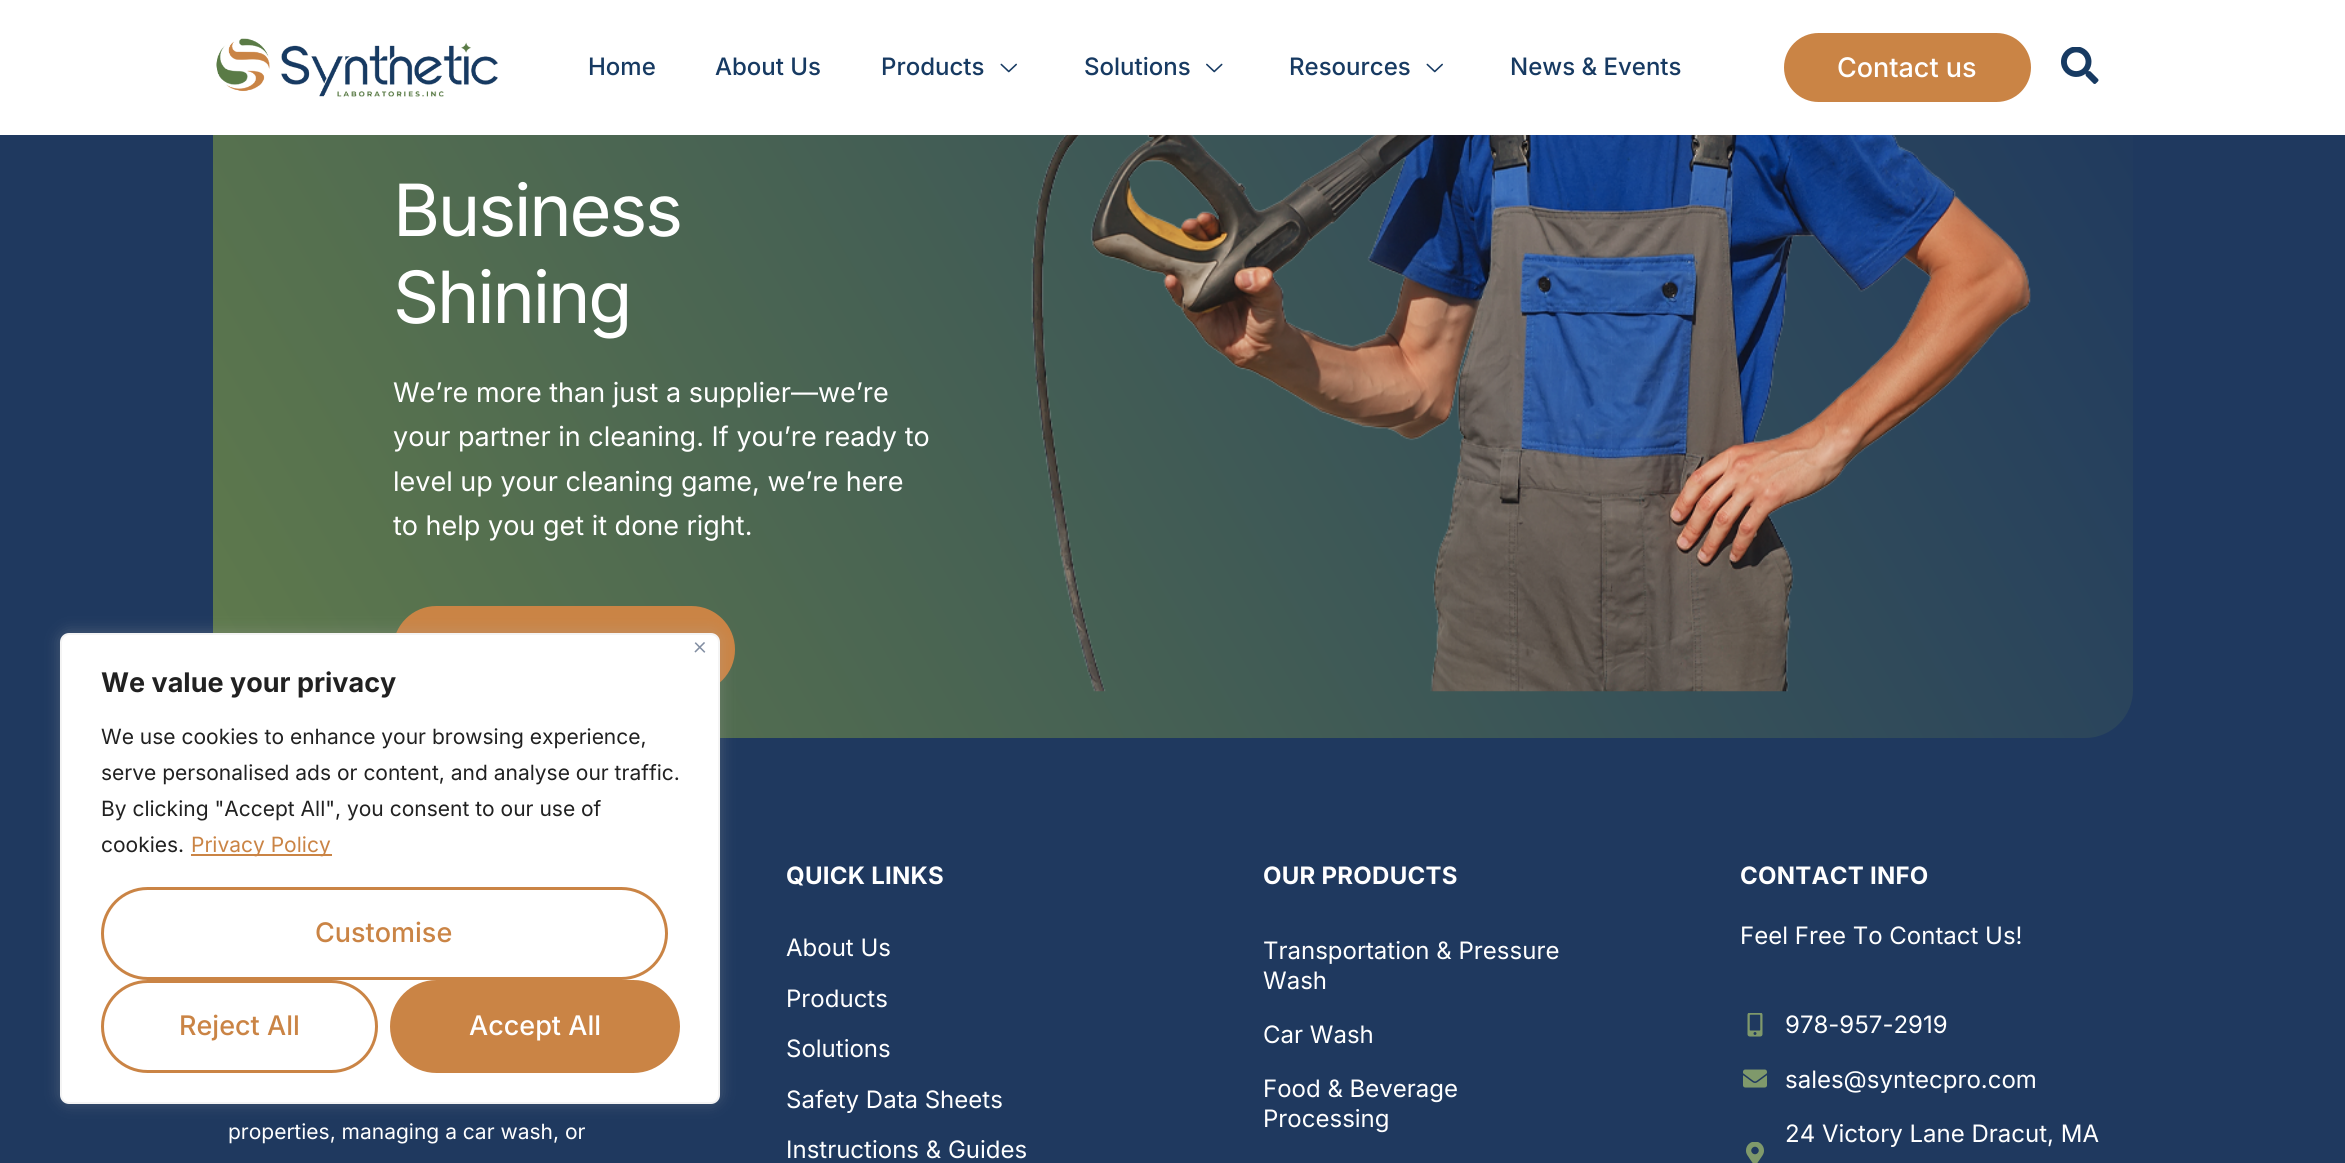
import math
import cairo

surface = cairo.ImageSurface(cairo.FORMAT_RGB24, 2345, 1163)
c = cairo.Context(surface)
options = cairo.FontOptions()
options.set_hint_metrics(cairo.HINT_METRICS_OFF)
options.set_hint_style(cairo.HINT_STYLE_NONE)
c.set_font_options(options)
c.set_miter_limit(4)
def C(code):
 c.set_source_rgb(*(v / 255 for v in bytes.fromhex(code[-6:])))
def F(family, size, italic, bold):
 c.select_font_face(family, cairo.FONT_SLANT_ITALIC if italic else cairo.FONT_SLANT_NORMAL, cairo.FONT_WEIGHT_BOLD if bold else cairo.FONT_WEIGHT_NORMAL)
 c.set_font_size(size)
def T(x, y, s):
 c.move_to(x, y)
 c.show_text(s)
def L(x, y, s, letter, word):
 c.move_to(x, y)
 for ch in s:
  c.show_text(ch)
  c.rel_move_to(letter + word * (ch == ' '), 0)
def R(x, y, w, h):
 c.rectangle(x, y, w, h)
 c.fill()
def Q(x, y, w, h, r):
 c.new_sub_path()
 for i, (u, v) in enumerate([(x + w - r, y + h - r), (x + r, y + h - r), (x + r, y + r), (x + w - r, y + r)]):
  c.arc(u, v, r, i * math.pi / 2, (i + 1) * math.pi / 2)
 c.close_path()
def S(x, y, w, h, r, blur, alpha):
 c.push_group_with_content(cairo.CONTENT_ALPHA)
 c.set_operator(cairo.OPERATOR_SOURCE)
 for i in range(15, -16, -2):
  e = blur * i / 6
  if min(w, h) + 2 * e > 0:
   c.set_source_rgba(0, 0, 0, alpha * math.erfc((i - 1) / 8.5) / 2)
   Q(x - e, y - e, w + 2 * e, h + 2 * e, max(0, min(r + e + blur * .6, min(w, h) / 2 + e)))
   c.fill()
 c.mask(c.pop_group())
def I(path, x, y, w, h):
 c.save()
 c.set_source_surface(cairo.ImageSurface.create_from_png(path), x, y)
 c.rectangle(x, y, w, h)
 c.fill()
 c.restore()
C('1f395f')
c.paint()
gradient = cairo.LinearGradient(2045,-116,301,890)
gradient.add_color_stop_rgba(0,0.122,0.224,0.373,1)
gradient.add_color_stop_rgba(1,0.376,0.482,0.298,1)
c.set_source(gradient)
Q(213,36,1920,702,48)
c.fill()
C('ffffff')
R(0,0,2345,135)
I('1.png',216,38,282,59)
F('Inter Medium',24,0,0)
C('173a62')
T(588,75,'Home')
T(715,75,'About Us')
T(881,75,'Products')
I('2.png',1000,63,17,10)
T(1084,75,'Solutions')
I('3.png',1206,63,17,10)
T(1289,75,'Resources')
I('2.png',1426,63,17,10)
T(1510,75,'News & Events')
C('ca8445')
Q(1784,33,247,69,34.5)
c.fill()
F('Inter Medium',27,0,0)
C('ffffff')
T(1837,77,'Contact us')
I('4.png',2061,47,38,37)
F('Inter',72,0,0)
L(393,236,'Business',-2.25,0)
L(393,323,'Shining',-2.25,0)
F('Inter',27,0,0)
T(393,402,'We’re more than just a supplier—we’re')
T(393,446,'your partner in cleaning. If you’re ready to')
T(393,491,'level up your cleaning game, we’re here')
T(393,535,'to help you get it done right.')
C('ca8445')
Q(393,606,342,87,43.5)
c.fill()
I('5.png',1031,135,1000,557)
F('Inter',21,0,0)
C('ffffff')
T(228,1139,'properties, managing a car wash, or')
F('Inter',24,0,1)
L(786,884,'QUICK LINKS',.25,0)
F('Inter',24,0,0)
T(786,956,'About Us')
T(786,1007,'Products')
T(786,1057,'Solutions')
T(786,1108,'Safety Data Sheets')
T(786,1158,'Instructions & Guides')
F('Inter',24,0,1)
L(1263,884,'OUR PRODUCTS',.25,0)
F('Inter',24,0,0)
T(1263,959,'Transportation & Pressure')
T(1263,989,'Wash')
T(1263,1043,'Car Wash')
T(1263,1097,'Food & Beverage')
T(1263,1127,'Processing')
F('Inter',24,0,1)
L(1740,884,'CONTACT INFO',.25,0)
F('Inter',24,0,0)
T(1740,944,'Feel Free To Contact Us!')
I('6.png',1747,1013,16,24)
T(1785,1033,'978-957-2919')
I('7.png',1743,1069,24,19)
T(1785,1088,'sales@syntecpro.com')
T(1785,1142,'24 Victory Lane Dracut, MA')
I('8.png',1746,1142,18,21)
C('acabab')
S(60,632,660,471,9,7.5,.3)
C('ffffff')
Q(61,634,658,469,8)
c.fill_preserve()
C('f4f4f4')
c.stroke()
I('9.png',694,642,12,11)
F('Inter',27,0,1)
C('212121')
T(101,692,'We value your privacy')
F('Inter',21,0,0)
T(101,744,'We use cookies to enhance your browsing experience,')
T(101,780,'serve personalised ads or content, and analyse our traffic.')
T(101,816,'By clicking "Accept All", you consent to our use of')
T(101,852,'cookies.')
C('ca8445')
R(191,854,141,2)
T(191,852,'Privacy Policy')
Q(102.5,888.5,564,90,45)
c.set_line_width(3)
c.stroke()
F('Inter Medium',27,0,0)
T(315,942,'Customise')
Q(102.5,981.5,274,90,45)
c.stroke()
T(179,1035,'Reject All')
Q(391.5,981.5,287,90,45)
c.fill_preserve()
c.stroke()
C('ffffff')
T(469,1035,'Accept All')
surface.write_to_png('o.png')
